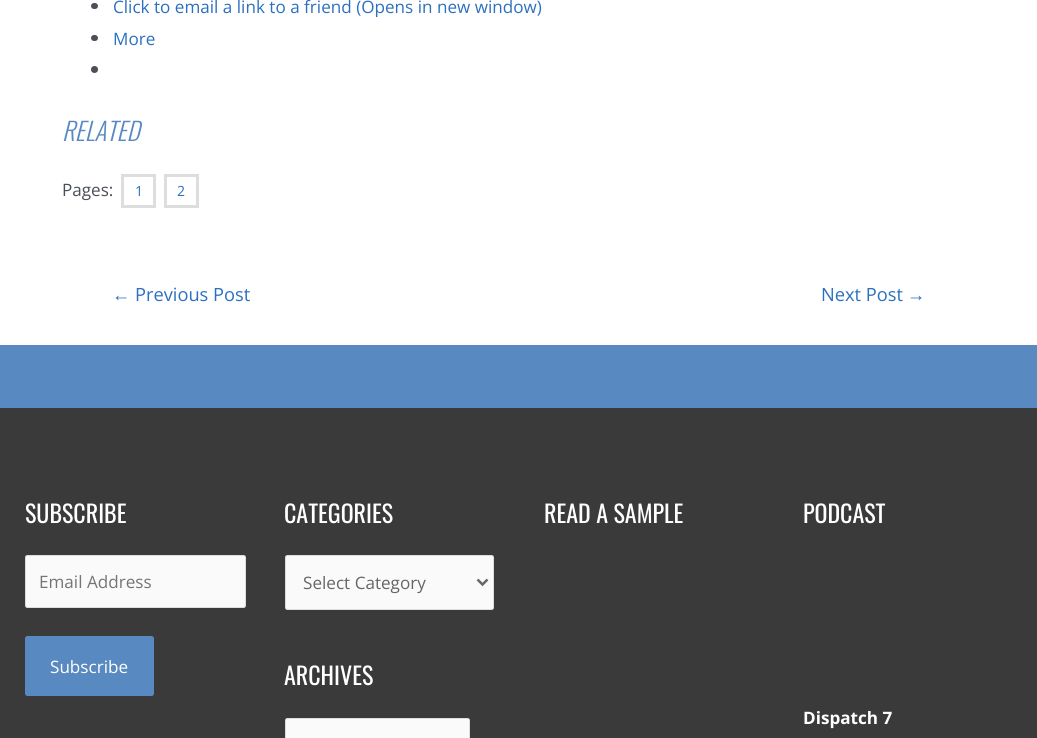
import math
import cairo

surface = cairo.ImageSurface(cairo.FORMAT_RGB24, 1037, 738)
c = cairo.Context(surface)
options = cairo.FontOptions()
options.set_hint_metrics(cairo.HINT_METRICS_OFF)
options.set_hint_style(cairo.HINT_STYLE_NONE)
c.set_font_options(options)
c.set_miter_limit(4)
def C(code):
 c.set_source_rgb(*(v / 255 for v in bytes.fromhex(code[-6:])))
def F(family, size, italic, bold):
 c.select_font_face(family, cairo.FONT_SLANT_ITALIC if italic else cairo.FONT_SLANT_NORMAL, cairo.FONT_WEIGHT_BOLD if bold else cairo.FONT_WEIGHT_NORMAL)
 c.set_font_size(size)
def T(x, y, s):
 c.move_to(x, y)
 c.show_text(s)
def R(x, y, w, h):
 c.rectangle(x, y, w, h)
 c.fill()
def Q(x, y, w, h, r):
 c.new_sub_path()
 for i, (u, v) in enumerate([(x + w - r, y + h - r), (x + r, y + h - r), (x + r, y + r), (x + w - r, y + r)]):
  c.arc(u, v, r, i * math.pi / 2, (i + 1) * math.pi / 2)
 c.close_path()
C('ffffff')
c.paint()
C('4b4f58')
Q(91,3,7,6,3)
c.fill()
F('Open Sans',17.1,0,0)
C('2b70bf')
T(113,13,'Click to email a link to a friend (Opens in new window)')
C('4b4f58')
Q(91,35,7,6,3)
c.fill()
C('2b70bf')
T(113,45,'More')
C('4b4f58')
c.new_path()
c.arc(94.5,69.5,3.5,0,2 * math.pi)
c.fill()
F('Oswald Light',25,1,0)
C('5889c0')
T(62,141,'RELATED')
F('Open Sans',17.1,0,0)
C('4b4f58')
T(62,196,'Pages:')
c.rectangle(122.5,175.5,32,31)
C('dddddd')
c.set_line_width(3)
c.stroke()
F('Open Sans',14,0,0)
C('2b70bf')
T(135,196,'1')
c.rectangle(165.5,175.5,32,31)
C('dddddd')
c.stroke()
C('2b70bf')
T(177,196,'2')
F('Liberation Sans',18.25,0,0)
T(112,301,'←')
F('Open Sans',18.25,0,0)
T(135,301,'Previous Post')
T(821,301,'Next Post')
F('Liberation Sans',18.25,0,0)
T(907,301,'→')
C('3a3a3a')
R(0,408,1037,330)
C('5889c0')
R(0,345,1037,63)
F('Oswald',24,0,0)
C('ffffff')
T(25,523,'SUBSCRIBE')
C('fafafa')
Q(25.5,555.5,220,52,2)
c.fill_preserve()
C('dddddd')
c.set_line_width(1)
c.stroke()
F('Open Sans',17.1,0,0)
C('757575')
T(39,588,'Email Address')
C('5889c0')
Q(25,636,129,60,2.5)
c.fill()
C('ffffff')
T(50,673,'Subscribe')
F('Oswald',24,0,0)
T(284,523,'CATEGORIES')
C('fafafa')
Q(285.5,555.5,208,54,2)
c.fill_preserve()
C('dddddd')
c.stroke()
c.new_path()
c.move_to(477.5,579.5)
c.line_to(482.5,584.5)
c.line_to(487.5,579.5)
C('666666')
c.set_line_width(2.5)
c.stroke()
F('Open Sans',17.1,0,0)
T(303,589,'Select Category')
F('Oswald',24,0,0)
C('ffffff')
T(284,685,'ARCHIVES')
C('fafafa')
Q(285.5,718.5,184,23,2)
c.fill_preserve()
C('dddddd')
c.set_line_width(1)
c.stroke()
C('ffffff')
T(544,523,'READ A SAMPLE')
T(803,523,'PODCAST')
F('Open Sans',17.1,0,1)
T(803,724,'Dispatch 7')
surface.write_to_png('o.png')
